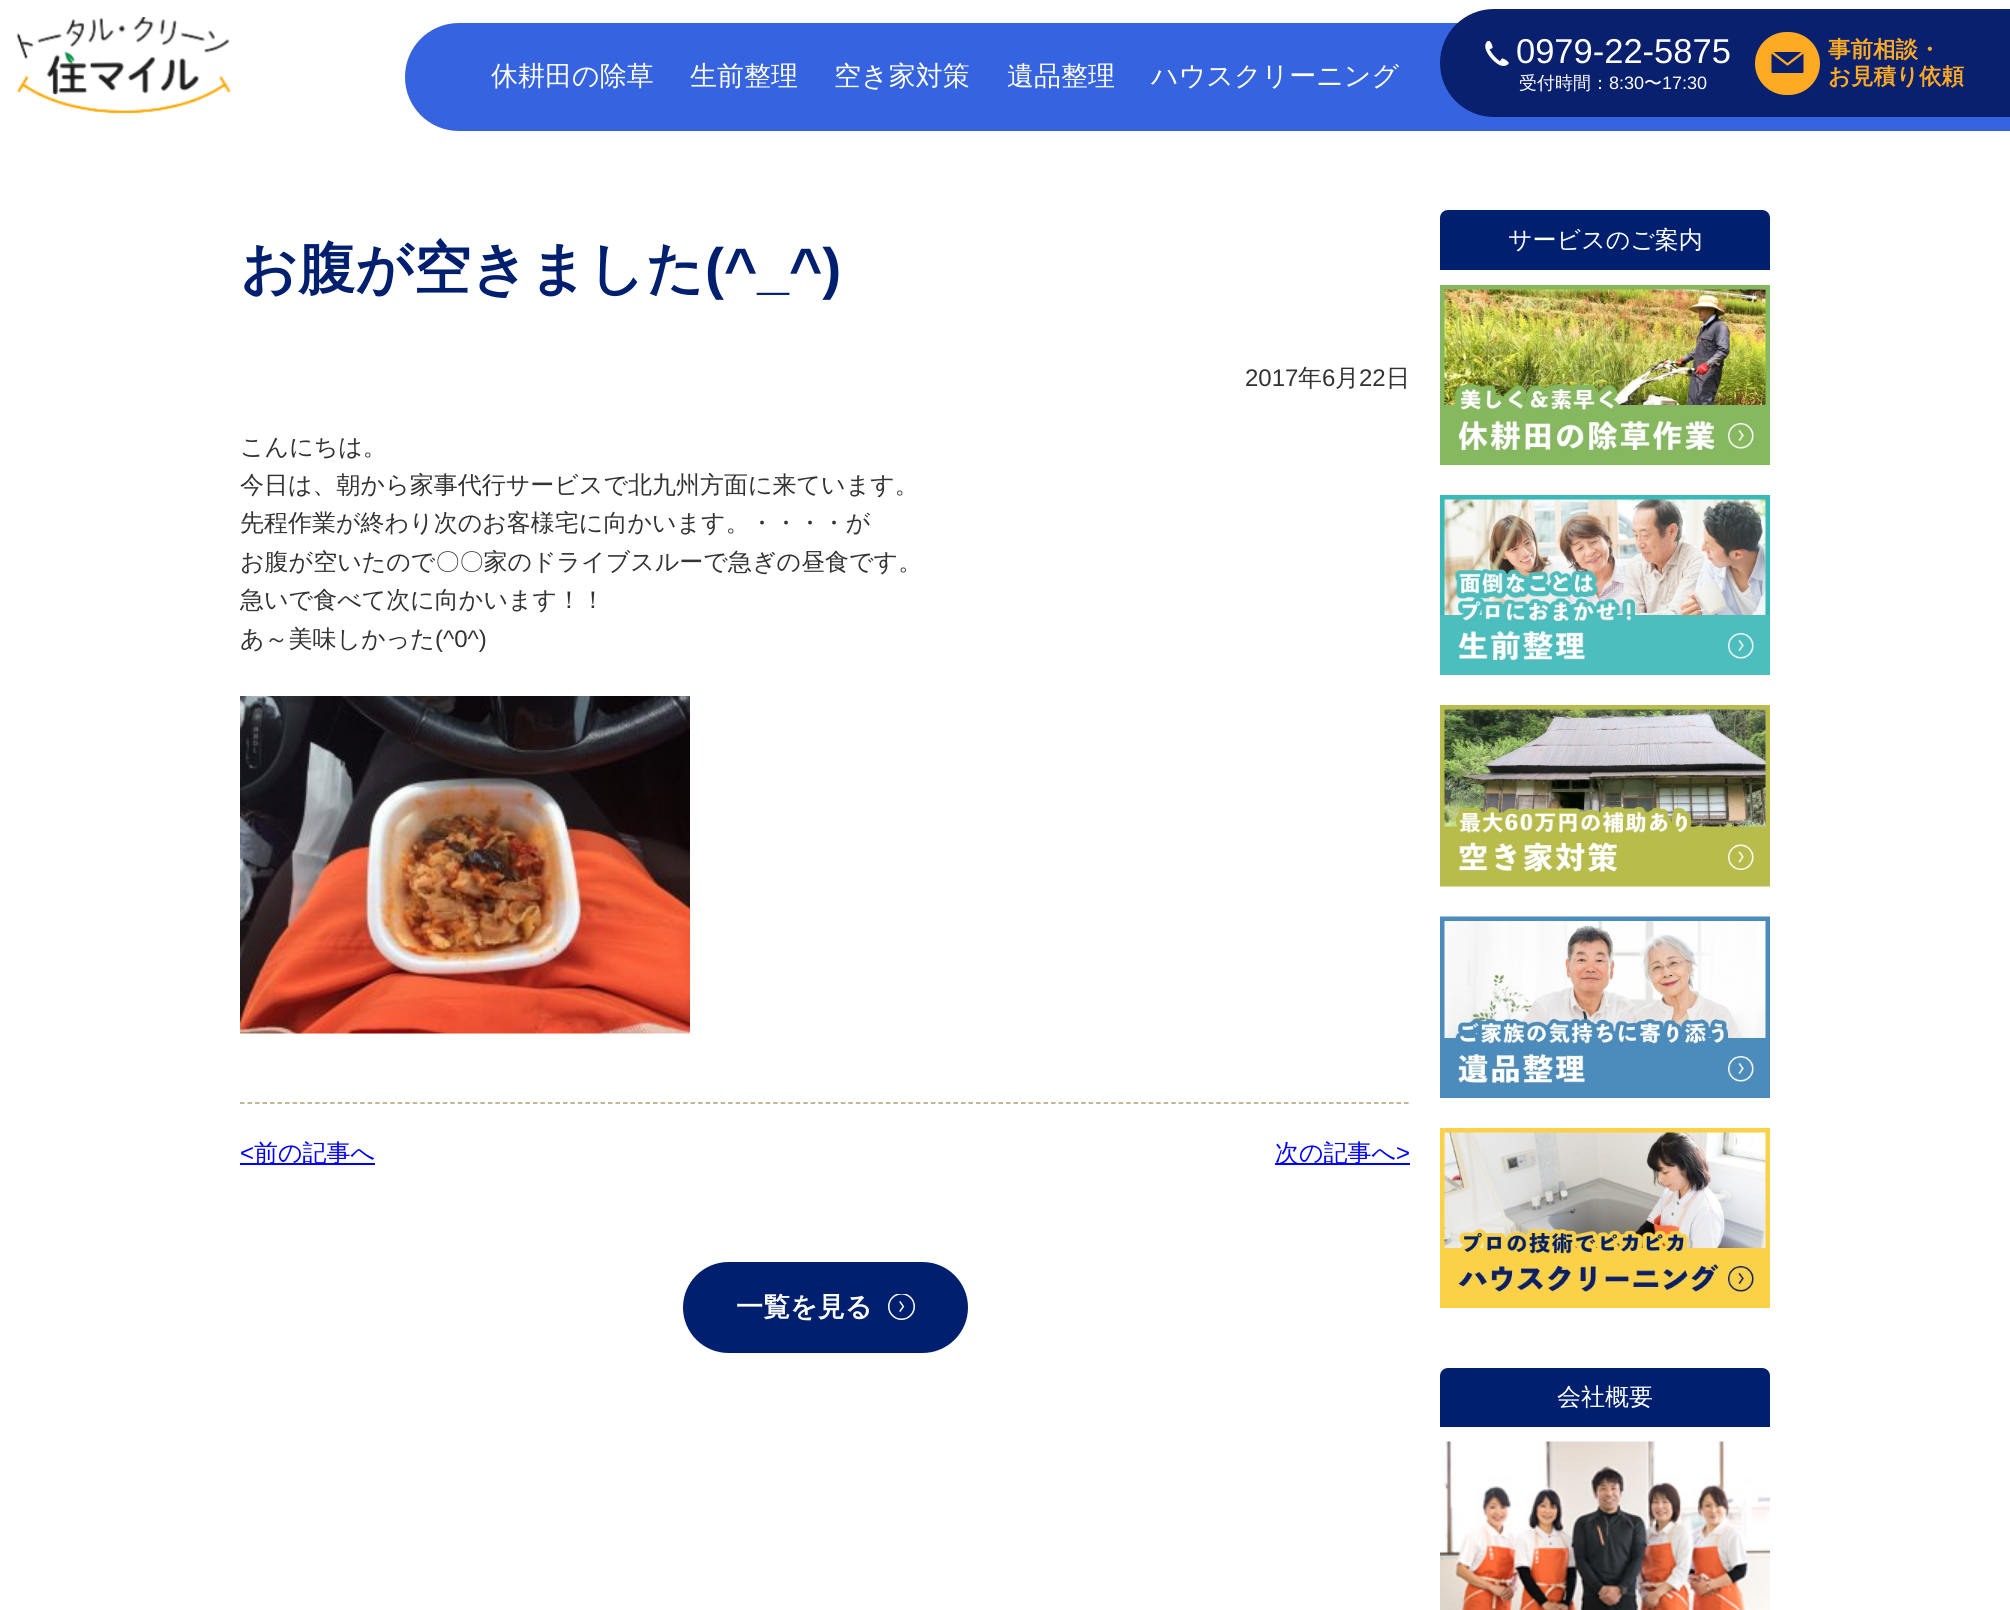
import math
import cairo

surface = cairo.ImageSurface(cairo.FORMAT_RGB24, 2010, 1610)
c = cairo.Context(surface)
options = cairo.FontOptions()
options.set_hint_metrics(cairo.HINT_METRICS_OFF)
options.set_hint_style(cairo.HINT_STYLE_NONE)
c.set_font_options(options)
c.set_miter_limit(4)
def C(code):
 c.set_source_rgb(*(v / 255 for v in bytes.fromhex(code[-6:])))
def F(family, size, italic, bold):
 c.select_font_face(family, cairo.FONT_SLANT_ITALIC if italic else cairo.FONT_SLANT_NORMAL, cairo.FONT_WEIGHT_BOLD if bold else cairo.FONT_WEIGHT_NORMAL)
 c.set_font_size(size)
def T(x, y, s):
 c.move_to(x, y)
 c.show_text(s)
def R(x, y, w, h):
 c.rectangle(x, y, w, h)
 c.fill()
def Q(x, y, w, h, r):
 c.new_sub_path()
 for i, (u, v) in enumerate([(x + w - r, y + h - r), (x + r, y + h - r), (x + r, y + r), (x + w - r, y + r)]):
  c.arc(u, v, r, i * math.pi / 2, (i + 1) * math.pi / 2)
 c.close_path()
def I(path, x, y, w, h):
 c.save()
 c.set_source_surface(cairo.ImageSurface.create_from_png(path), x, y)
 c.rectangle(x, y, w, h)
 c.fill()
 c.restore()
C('ffffff')
c.paint()
I('1.png',16,17,215,97)
C('3663e0')
c.new_path()
c.move_to(459,23)
c.line_to(2010,23)
c.line_to(2010,131)
c.line_to(459,131)
c.curve_to(429,131,405,107,405,77)
c.curve_to(405,47,429,23,459,23)
c.close_path()
c.fill()
F('WenQuanYi Zen Hei Medium',27,0,0)
C('ffffff')
T(491,85,'休耕田の除草')
T(690,85,'生前整理')
T(834,85,'空き家対策')
T(1007,85,'遺品整理')
T(1151,85,'ハウスクリーニング')
C('09206f')
c.new_path()
c.move_to(1494,9)
c.line_to(2010,9)
c.line_to(2010,117)
c.line_to(1494,117)
c.curve_to(1464,117,1440,93,1440,63)
c.curve_to(1440,33,1464,9,1494,9)
c.close_path()
c.fill()
I('2.png',1485,41,24,25)
F('Liberation Sans',34.5,0,0)
C('ffffff')
T(1516,63,'0979-22-5875')
F('WenQuanYi Zen Hei Medium',18,0,0)
T(1519,89,'受付時間：')
F('Liberation Sans',18,0,0)
T(1609,89,'8:30')
F('WenQuanYi Zen Hei Medium',18,0,0)
T(1644,89,'〜')
F('Liberation Sans',18,0,0)
T(1662,89,'17:30')
C('ffaa23')
Q(1755,32,65,63,31.5)
c.fill()
C('09206f')
c.new_path()
c.move_to(1787.5,63)
c.line_to(1773.5,52)
c.line_to(1801.5,52)
c.close_path()
c.move_to(1788,65.5)
c.curve_to(1787.5,65.5,1787,65.5,1787,65.5)
c.line_to(1771.5,53.5)
c.line_to(1771.5,72)
c.curve_to(1771.5,72.5,1772,73,1772.5,73)
c.line_to(1802.5,73)
c.curve_to(1803,73,1803.5,72.5,1803.5,72)
c.line_to(1803.5,53.5)
c.line_to(1788,65.5)
c.fill()
F('WenQuanYi Zen Hei',22.5,0,1)
C('ffaa23')
T(1828,57,'事前相談・')
T(1828,84,'お見積り依頼')
c.new_path()
c.move_to(240,1103)
c.line_to(1410,1103)
C('aba073')
c.set_line_width(1.5)
c.set_dash([4.5,3.01])
c.stroke()
F('WenQuanYi Zen Hei',57,0,1)
C('00206f')
T(240,288,'お腹が空きました')
F('Liberation Sans',57,0,1)
T(705,288,'(^_^)')
F('Liberation Sans',24,0,0)
C('333333')
T(1245,386,'2017')
F('WenQuanYi Zen Hei Medium',24,0,0)
T(1298,386,'年')
F('Liberation Sans',24,0,0)
T(1322,386,'6')
F('WenQuanYi Zen Hei Medium',24,0,0)
T(1335,386,'月')
F('Liberation Sans',24,0,0)
T(1359,386,'22')
F('WenQuanYi Zen Hei Medium',24,0,0)
T(1386,386,'日')
T(240,455,'こんにちは。')
T(240,493,'今日は、朝から家事代行サービスで北九州方面に来ています。')
T(240,531,'先程作業が終わり次のお客様宅に向かいます。・・・・が')
T(240,570,'お腹が空いたので〇〇家のドライブスルーで急ぎの昼食です。')
T(240,608,'急いで食べて次に向かいます！！')
T(240,647,'あ～美味しかった')
F('Liberation Sans',24,0,0)
T(435,647,'(^0^)')
I('3.png',240,696,450,338)
C('0000ff')
T(240,1161,'<')
R(240,1163,135,2)
F('WenQuanYi Zen Hei Medium',24,0,0)
T(254,1161,'前の記事へ')
R(1275,1163,135,2)
T(1275,1161,'次の記事へ')
F('Liberation Sans',24,0,0)
T(1396,1161,'>')
C('00206f')
Q(683,1262,285,91,45.5)
c.fill()
F('WenQuanYi Zen Hei',27,0,1)
C('ffffff')
T(736,1316,'一覧を見る')
I('4.png',888,1294,27,26)
C('00206f')
c.new_path()
c.move_to(1448,210)
c.line_to(1762,210)
c.curve_to(1766.5,210,1770,213.5,1770,218)
c.line_to(1770,270)
c.line_to(1440,270)
c.line_to(1440,218)
c.curve_to(1440,213.5,1443.5,210,1448,210)
c.close_path()
c.fill()
F('WenQuanYi Zen Hei Medium',24,0,0)
C('ffffff')
T(1508,248,'サービスのご案内')
I('5.png',1440,285,330,180)
I('6.png',1440,495,330,180)
I('7.png',1440,705,330,182)
I('8.png',1440,916,330,182)
I('9.png',1440,1128,330,180)
C('00206f')
c.new_path()
c.move_to(1448,1368)
c.line_to(1762,1368)
c.curve_to(1766.5,1368,1770,1371.5,1770,1376)
c.line_to(1770,1427)
c.line_to(1440,1427)
c.line_to(1440,1376)
c.curve_to(1440,1371.5,1443.5,1368,1448,1368)
c.close_path()
c.fill()
C('ffffff')
T(1557,1405,'会社概要')
I('10.png',1440,1441,330,169)
surface.write_to_png('o.png')
